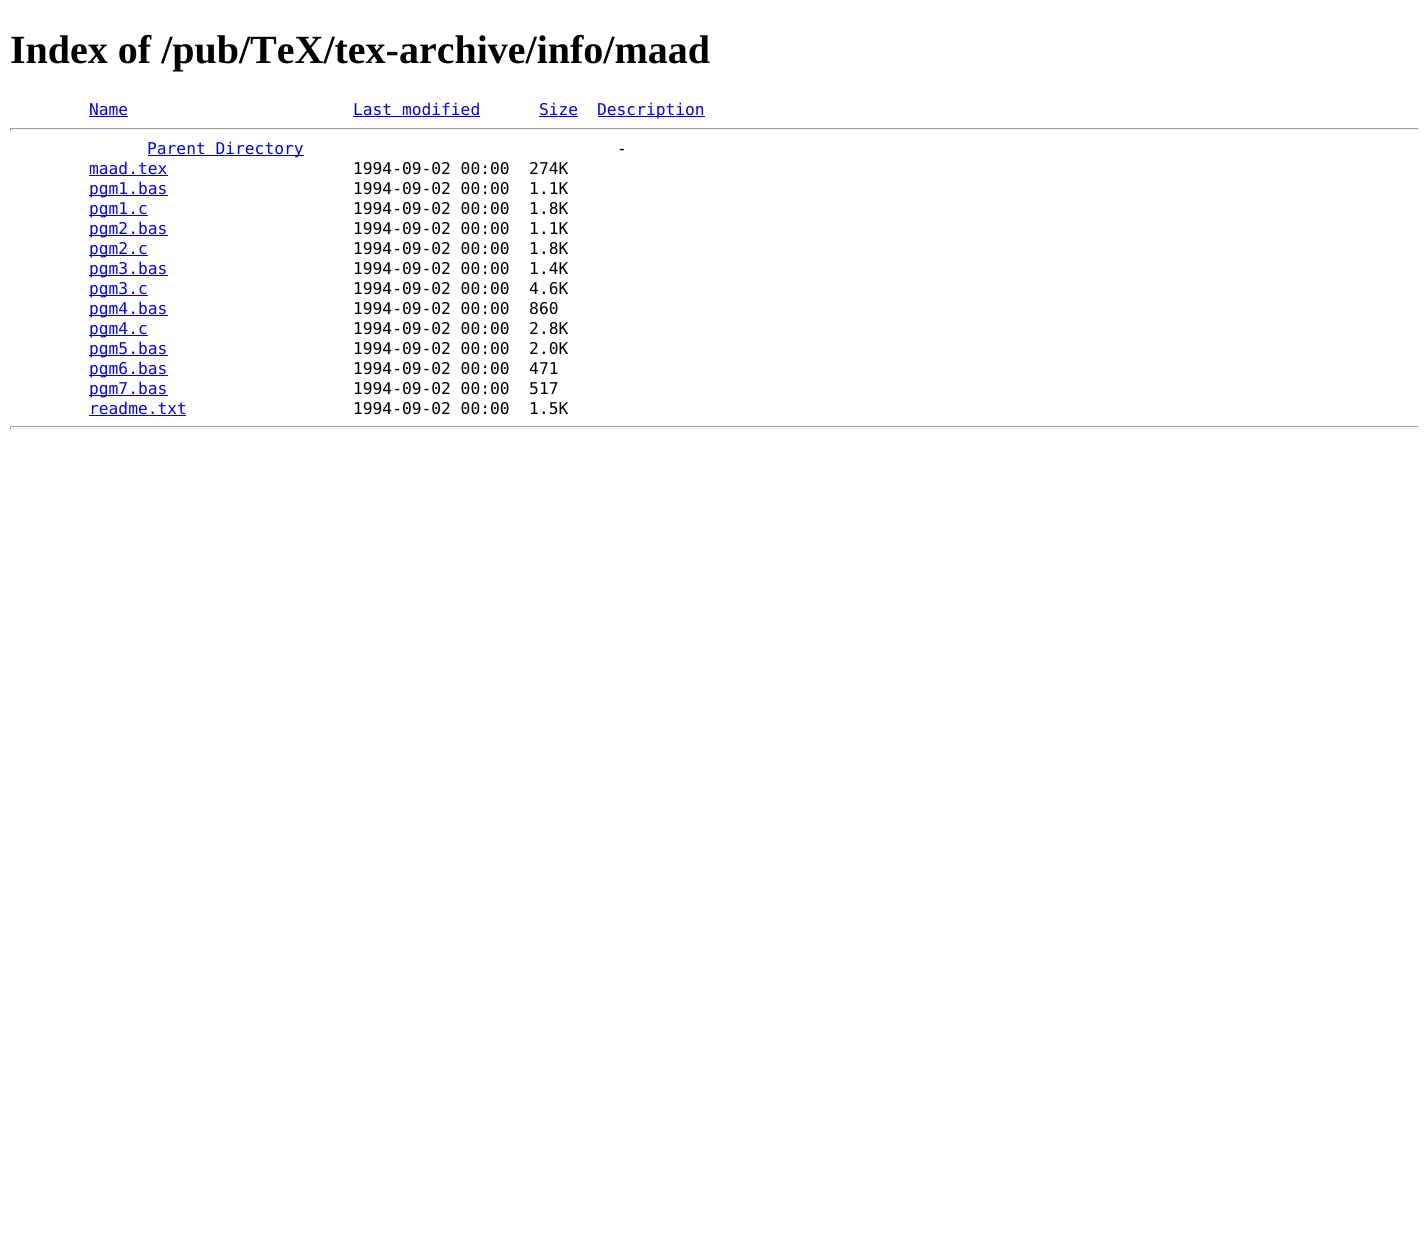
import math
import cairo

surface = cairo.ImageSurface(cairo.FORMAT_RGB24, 1428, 1258)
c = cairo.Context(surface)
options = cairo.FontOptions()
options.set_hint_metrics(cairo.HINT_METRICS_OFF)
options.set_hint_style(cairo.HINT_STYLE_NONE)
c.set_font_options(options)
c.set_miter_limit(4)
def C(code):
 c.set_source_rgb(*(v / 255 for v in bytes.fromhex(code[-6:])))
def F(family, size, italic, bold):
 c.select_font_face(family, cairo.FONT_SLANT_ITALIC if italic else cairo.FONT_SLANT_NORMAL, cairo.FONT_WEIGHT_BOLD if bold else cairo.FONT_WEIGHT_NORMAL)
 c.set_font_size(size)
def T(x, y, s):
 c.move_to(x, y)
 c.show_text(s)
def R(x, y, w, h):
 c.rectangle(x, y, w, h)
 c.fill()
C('ffffff')
c.paint()
F('Liberation Serif',40,0,1)
C('000000')
T(10,63,'Index of /pub/TeX/tex-archive/info/maad')
F('DejaVu Sans Mono',16.25,0,0)
C('0000ee')
T(89,115,'Name')
R(89,116,39,1)
T(353,115,'Last modified')
R(353,116,127,1)
T(539,115,'Size')
R(539,116,39,1)
R(598,116,107,1)
T(597,115,'Description')
C('9f9f9f')
R(10,128,1409,1)
C('eeeeee')
R(1418,128,1,3)
R(10,129,1409,1)
C('9f9f9f')
R(10,128,1,3)
C('0000ee')
R(148,155,156,1)
T(147,154,'Parent Directory')
C('000000')
T(617,154,'-')
C('0000ee')
T(89,174,'maad.tex')
R(89,175,79,1)
C('000000')
T(353,174,'1994-09-02 00:00  274K')
C('0000ee')
R(89,195,79,1)
T(89,194,'pgm1.bas')
C('000000')
T(353,194,'1994-09-02 00:00  1.1K')
C('0000ee')
R(89,215,59,1)
T(89,214,'pgm1.c')
C('000000')
T(353,214,'1994-09-02 00:00  1.8K')
C('0000ee')
R(89,235,79,1)
T(89,234,'pgm2.bas')
C('000000')
T(353,234,'1994-09-02 00:00  1.1K')
C('0000ee')
R(89,255,59,1)
T(89,254,'pgm2.c')
C('000000')
T(353,254,'1994-09-02 00:00  1.8K')
C('0000ee')
R(89,275,79,1)
T(89,274,'pgm3.bas')
C('000000')
T(353,274,'1994-09-02 00:00  1.4K')
C('0000ee')
R(89,295,59,1)
T(89,294,'pgm3.c')
C('000000')
T(353,294,'1994-09-02 00:00  4.6K')
C('0000ee')
R(89,315,79,1)
T(89,314,'pgm4.bas')
C('000000')
T(353,314,'1994-09-02 00:00  860')
C('0000ee')
R(89,335,59,1)
T(89,334,'pgm4.c')
C('000000')
T(353,334,'1994-09-02 00:00  2.8K')
C('0000ee')
R(89,355,79,1)
T(89,354,'pgm5.bas')
C('000000')
T(353,354,'1994-09-02 00:00  2.0K')
C('0000ee')
R(89,375,79,1)
T(89,374,'pgm6.bas')
C('000000')
T(353,374,'1994-09-02 00:00  471')
C('0000ee')
R(89,395,79,1)
T(89,394,'pgm7.bas')
C('000000')
T(353,394,'1994-09-02 00:00  517')
C('0000ee')
T(89,414,'readme.txt')
R(89,415,97,1)
C('000000')
T(353,414,'1994-09-02 00:00  1.5K')
C('9f9f9f')
R(10,426,1409,1)
C('eeeeee')
R(1418,426,1,3)
R(10,428,1409,1)
C('9f9f9f')
R(10,426,1,3)
surface.write_to_png('o.png')
